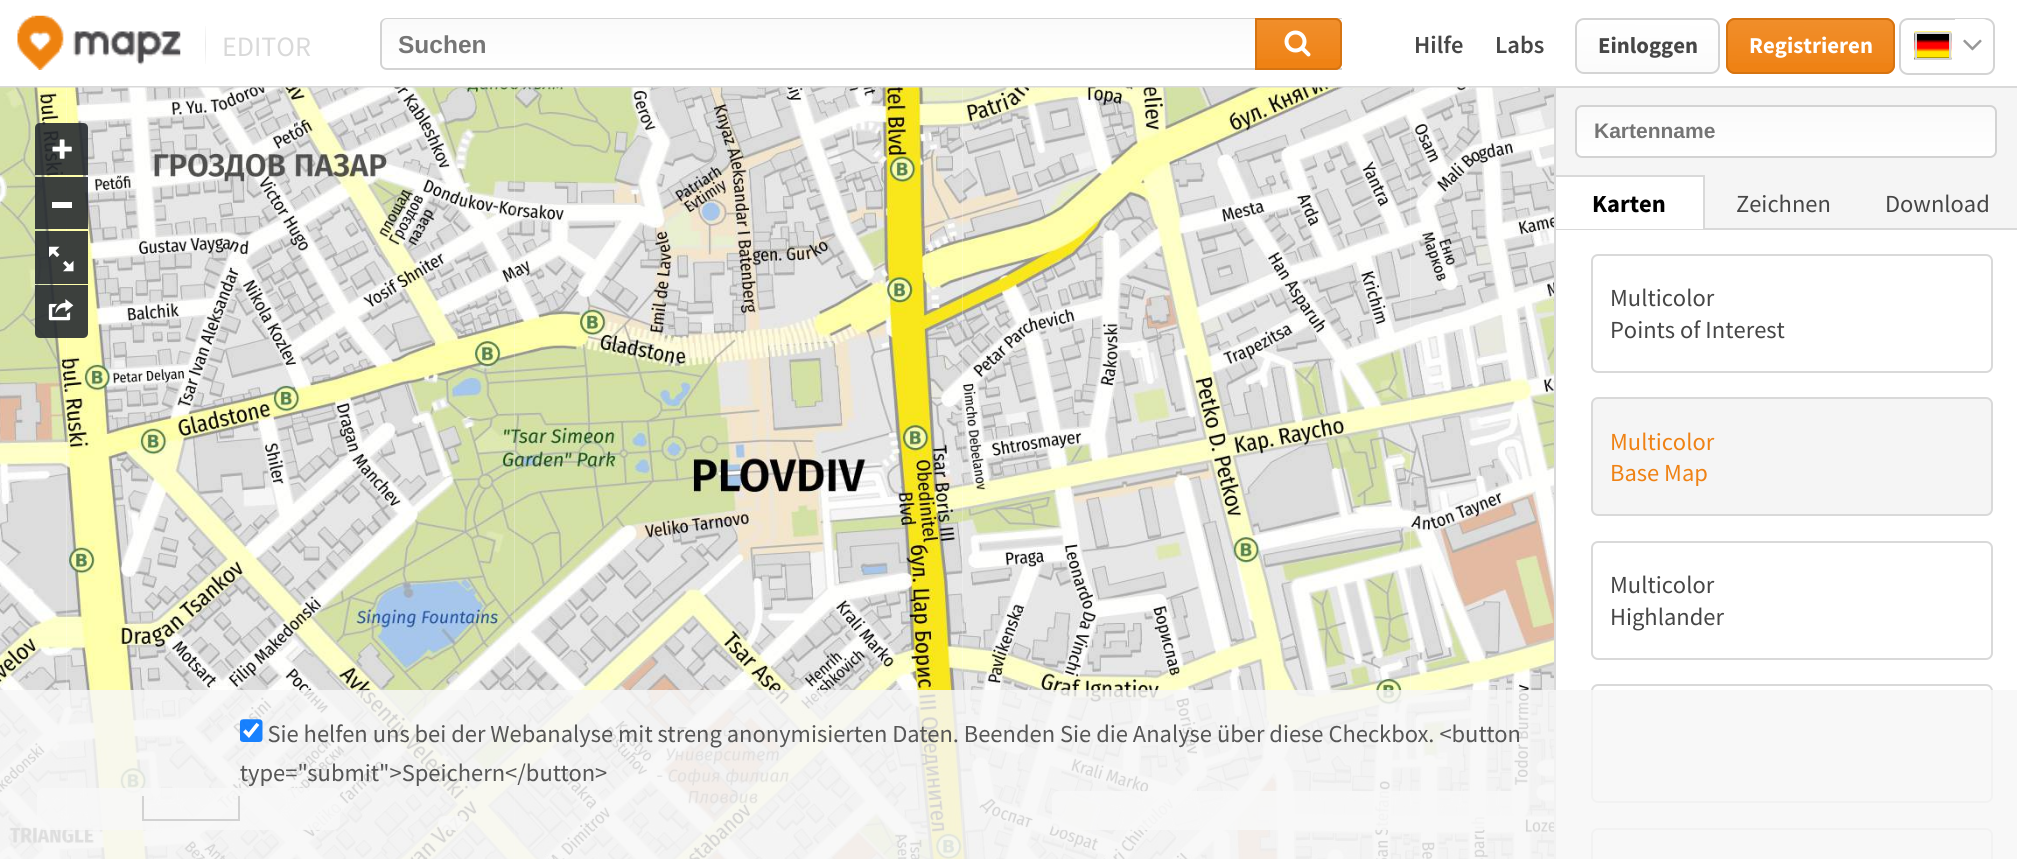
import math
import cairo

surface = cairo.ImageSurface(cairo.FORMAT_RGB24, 2017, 859)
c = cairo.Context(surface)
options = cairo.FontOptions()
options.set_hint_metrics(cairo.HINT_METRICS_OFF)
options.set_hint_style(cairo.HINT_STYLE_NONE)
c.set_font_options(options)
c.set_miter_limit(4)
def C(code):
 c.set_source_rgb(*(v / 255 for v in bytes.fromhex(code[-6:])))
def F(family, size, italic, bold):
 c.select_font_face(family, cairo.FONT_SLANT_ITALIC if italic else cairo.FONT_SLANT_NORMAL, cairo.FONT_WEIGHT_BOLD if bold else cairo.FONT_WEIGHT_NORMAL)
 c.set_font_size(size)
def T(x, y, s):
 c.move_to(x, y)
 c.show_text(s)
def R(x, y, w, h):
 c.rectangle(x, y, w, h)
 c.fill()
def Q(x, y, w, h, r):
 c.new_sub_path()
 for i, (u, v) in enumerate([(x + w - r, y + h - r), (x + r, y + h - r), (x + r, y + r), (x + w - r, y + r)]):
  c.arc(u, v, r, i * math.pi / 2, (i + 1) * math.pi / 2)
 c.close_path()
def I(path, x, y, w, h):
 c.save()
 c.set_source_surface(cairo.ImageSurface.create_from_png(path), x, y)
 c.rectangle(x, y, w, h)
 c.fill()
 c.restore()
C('ffffff')
c.paint()
C('d9d9d9')
R(0,86,2017,2)
I('1.png',17,15,164,55)
I('2.png',205,26,1,38)
F('Source Sans Pro',28,0,0)
T(222,56,'EDITOR')
gradient = cairo.LinearGradient(862,19,862,68)
gradient.add_color_stop_rgba(0,0.98,0.98,0.98,1)
gradient.add_color_stop_rgba(1,1,1,1,1)
c.set_source(gradient)
c.new_path()
c.move_to(387,19)
c.line_to(1342,19)
c.line_to(1342,68)
c.line_to(387,68)
c.curve_to(384,68,382,66,382,63)
c.line_to(382,24)
c.curve_to(382,21,384,19,387,19)
c.close_path()
c.fill()
C('d3d3d3')
c.set_fill_rule(cairo.FILL_RULE_EVEN_ODD)
c.new_path()
c.move_to(387,18)
c.line_to(1342,18)
c.line_to(1342,70)
c.line_to(387,70)
c.curve_to(383,70,380,67,380,63)
c.line_to(380,24)
c.curve_to(380,21,383,18,387,18)
c.close_path()
c.move_to(387,19)
c.line_to(1342,19)
c.line_to(1342,68)
c.line_to(387,68)
c.curve_to(384,68,382,66,382,63)
c.line_to(382,24)
c.curve_to(382,22,384,19,387,19)
c.close_path()
c.fill()
F('Liberation Sans',24.5,0,1)
C('757575')
T(398,53,'Suchen')
C('ef8214')
c.new_path()
c.move_to(1255,18)
c.line_to(1335,18)
c.curve_to(1339,18,1342,21,1342,25)
c.line_to(1342,63)
c.curve_to(1342,67,1339,70,1335,70)
c.line_to(1255,70)
c.close_path()
c.fill()
c.save()
c.set_fill_rule(cairo.FILL_RULE_WINDING)
c.new_path()
c.move_to(1255,18)
c.line_to(1335,18)
c.curve_to(1339,18,1342,21,1342,25)
c.line_to(1342,63)
c.curve_to(1342,67,1339,70,1335,70)
c.line_to(1255,70)
c.close_path()
c.clip()
gradient = cairo.LinearGradient(1299,19,1298,69)
gradient.add_color_stop_rgba(0,1,1,1,.1)
gradient.add_color_stop_rgba(1,1,1,1,0)
c.set_source(gradient)
R(1257,19,84,40)
c.restore()
c.new_path()
c.move_to(1256,19)
c.line_to(1335,19)
c.curve_to(1338.5,19,1341,21.5,1341,25)
c.line_to(1341,63)
c.curve_to(1341,66.5,1338.5,69,1335,69)
c.line_to(1256,69)
c.close_path()
C('d67411')
c.stroke()
I('3.png',1284,30,27,27)
F('Source Sans Pro SemiBold',24.5,0,0)
C('464646')
T(1414,53,'Hilfe')
T(1495,53,'Labs')
gradient = cairo.LinearGradient(1648,18,1647,73)
gradient.add_color_stop_rgba(0,1,1,1,1)
gradient.add_color_stop_rgba(1,0.984,0.984,0.984,1)
c.set_source(gradient)
Q(1577,19,142,53,7)
c.fill()
Q(1576,19,143,54,8)
C('d4d4d4')
c.stroke()
F('Source Sans Pro',22.75,0,1)
C('464646')
T(1598,53,'Einloggen')
C('ef8214')
Q(1726,18,169,56,9)
c.fill()
c.save()
c.set_fill_rule(cairo.FILL_RULE_WINDING)
Q(1726,18,169,56,9)
c.clip()
gradient = cairo.LinearGradient(1811,18,1810,73)
gradient.add_color_stop_rgba(0,1,1,1,.1)
gradient.add_color_stop_rgba(1,1,1,1,0)
c.set_source(gradient)
R(1727,19,167,44)
c.restore()
Q(1727,19,167,54,8)
C('d67411')
c.stroke()
C('ffffff')
T(1749,53,'Registrieren')
Q(1900,19,94,55,8)
C('d4d4d4')
c.stroke()
I('4.png',1914,31,38,29)
c.rectangle(1916,33,34,26)
c.stroke()
C('ffffff')
c.new_path()
c.move_to(1955,19)
c.line_to(1983,19)
c.curve_to(1987,19,1990,22,1990,26)
c.line_to(1990,47)
c.curve_to(1990,51,1987,54,1983,54)
c.line_to(1955,54)
c.close_path()
c.fill()
I('5.png',1963,39,19,12)
I('8.png',514,87,449,256)
I('7.png',66,87,449,256)
I('6.png',0,87,67,256)
I('9.png',962,87,449,256)
I('10.png',1410,87,144,256)
I('13.png',514,343,449,448)
I('12.png',66,343,449,448)
I('11.png',0,343,67,448)
I('14.png',962,343,449,448)
I('15.png',1410,343,144,448)
I('18.png',514,791,449,68)
I('17.png',66,791,449,68)
I('16.png',0,791,67,68)
I('19.png',962,791,449,68)
I('20.png',1410,791,144,68)
c.set_source_rgba(0.153,0.173,0.192,0.9)
c.new_path()
c.move_to(40,123)
c.line_to(83,123)
c.curve_to(86,123,88,125,88,128)
c.line_to(88,175)
c.line_to(35,175)
c.line_to(35,128)
c.curve_to(35,125,37,123,40,123)
c.close_path()
c.fill()
I('21.png',52,139,20,20)
R(35,177,53,52)
C('ffffff')
R(52,202,20,6)
c.set_source_rgba(0.153,0.173,0.192,0.9)
R(35,231,53,53)
I('22.png',49,246,25,26)
c.new_path()
c.move_to(35,285)
c.line_to(88,285)
c.line_to(88,333)
c.curve_to(88,336,86,338,83,338)
c.line_to(40,338)
c.curve_to(37,338,35,336,35,333)
c.close_path()
c.fill()
I('23.png',48,299,26,22)
c.set_source_rgba(1,1,1,0.85)
Q(37,788,303,42,7)
c.fill()
C('000000')
R(238,796,2,25)
R(142,819,98,2)
R(142,796,2,25)
c.set_source_rgba(1,1,1,0.85)
Q(438,816,28,14,7)
c.fill()
Q(1052,791,465,39,7)
c.fill()
C('f5f5f5')
R(1556,88,461,140)
C('d9d9d9')
R(1554,88,2,771)
gradient = cairo.LinearGradient(1786,107,1786,156)
gradient.add_color_stop_rgba(0,0.98,0.98,0.98,1)
gradient.add_color_stop_rgba(1,1,1,1,1)
c.set_source(gradient)
Q(1577,107,418,49,5)
c.fill()
Q(1576,106,420,51,6)
C('d3d3d3')
c.stroke()
F('Liberation Sans',21,0,1)
C('757575')
T(1594,138,'Kartenname')
C('d9d9d9')
R(1556,228,461,2)
C('ffffff')
R(1556,177,147,52)
C('d9d9d9')
R(1556,175,149,2)
R(1703,175,2,54)
F('Source Sans Pro',24.5,0,1)
C('000000')
T(1592,212,'Karten')
F('Source Sans Pro',24.5,0,0)
C('464646')
T(1736,212,'Zeichnen')
T(1885,212,'Download')
Q(1592,255,400,117,6)
C('d9d9d9')
c.stroke()
C('464646')
T(1610,306,'Multicolor')
T(1610,338,'Points of Interest')
C('f5f5f5')
Q(1592,398,400,117,6)
c.fill_preserve()
C('d9d9d9')
c.stroke()
C('ef8214')
T(1610,450,'Multicolor')
T(1610,481,'Base Map')
Q(1592,542,400,117,6)
C('d9d9d9')
c.stroke()
C('464646')
T(1610,593,'Multicolor')
T(1610,625,'Highlander')
Q(1592,685,400,117,6)
C('d9d9d9')
c.stroke()
Q(1592,829,400,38,6)
c.stroke()
c.set_source_rgba(0.969,0.969,0.969,0.85)
R(0,690,2017,169)
I('24.png',240,719,1280,68)
surface.write_to_png('o.png')
